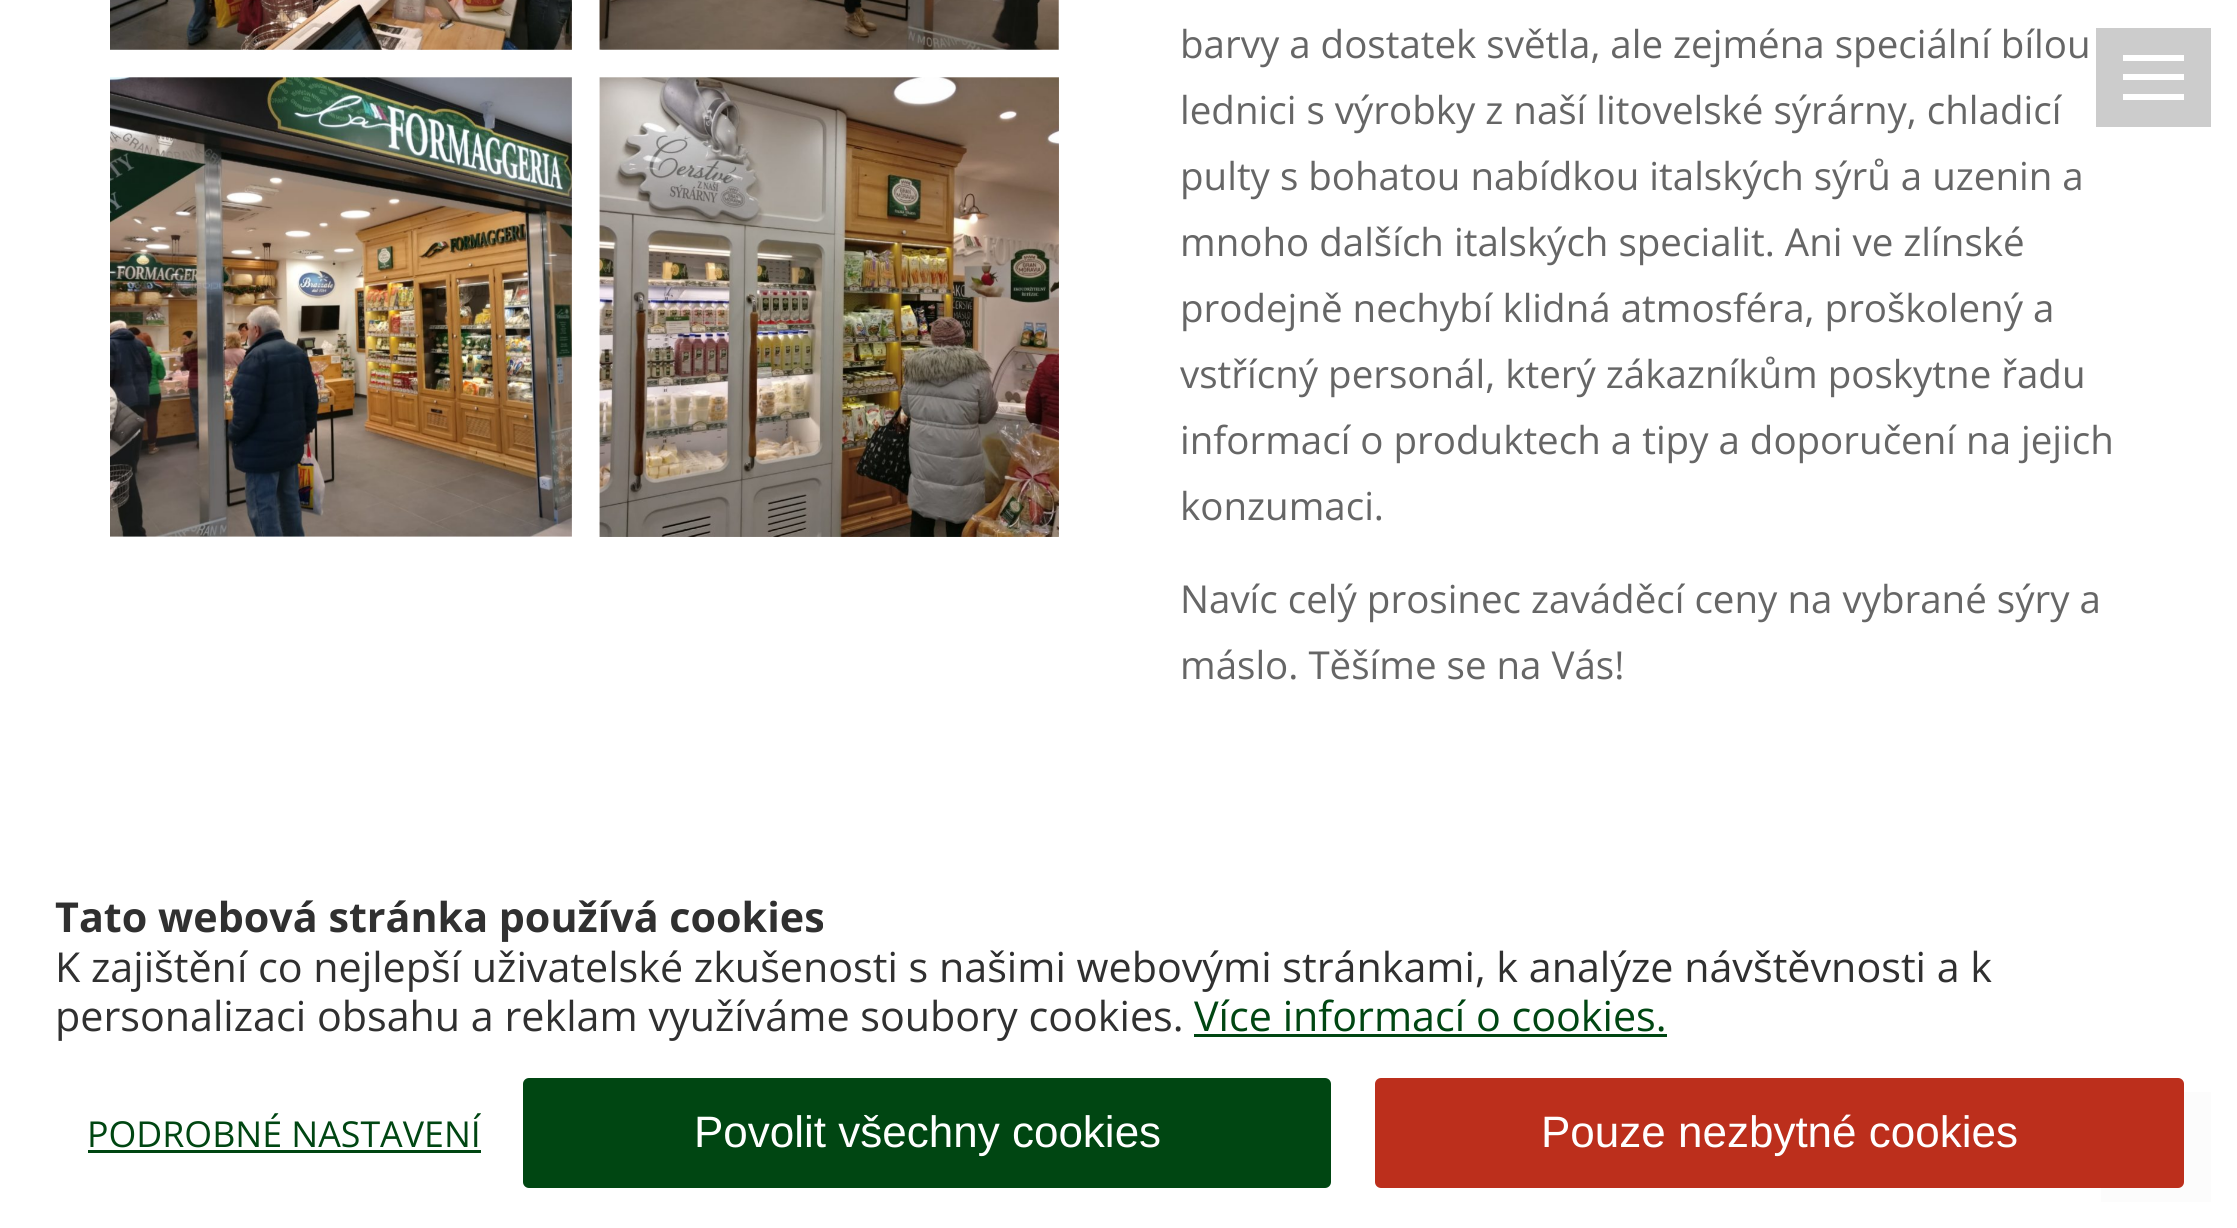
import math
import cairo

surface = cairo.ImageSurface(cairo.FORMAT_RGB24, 2237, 1228)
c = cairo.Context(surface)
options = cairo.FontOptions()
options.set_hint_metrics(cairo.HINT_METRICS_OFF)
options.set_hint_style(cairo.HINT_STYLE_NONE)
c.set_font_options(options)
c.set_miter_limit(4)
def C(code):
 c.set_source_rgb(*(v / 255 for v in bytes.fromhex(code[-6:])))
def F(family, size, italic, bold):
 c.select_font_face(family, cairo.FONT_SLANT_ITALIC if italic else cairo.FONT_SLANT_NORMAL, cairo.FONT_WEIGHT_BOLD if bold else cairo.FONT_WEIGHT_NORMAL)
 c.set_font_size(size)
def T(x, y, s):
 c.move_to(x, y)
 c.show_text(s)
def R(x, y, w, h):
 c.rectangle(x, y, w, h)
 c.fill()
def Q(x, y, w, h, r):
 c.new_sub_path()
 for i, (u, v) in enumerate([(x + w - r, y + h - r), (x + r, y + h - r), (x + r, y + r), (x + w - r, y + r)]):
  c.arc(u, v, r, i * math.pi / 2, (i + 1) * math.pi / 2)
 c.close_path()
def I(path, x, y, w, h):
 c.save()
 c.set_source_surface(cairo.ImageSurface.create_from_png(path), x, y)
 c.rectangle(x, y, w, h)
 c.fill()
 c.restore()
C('ffffff')
c.paint()
I('1.png',110,0,462,50)
I('2.png',599,0,460,50)
I('3.png',110,77,462,460)
I('4.png',599,77,460,460)
F('Open Sans',38.5,0,0)
C('666666')
T(1180,58,'barvy a dostatek světla, ale zejména speciální bílou')
T(1180,124,'lednici s výrobky z naší litovelské sýrárny, chladicí')
T(1180,190,'pulty s bohatou nabídkou italských sýrů a uzenin a')
T(1180,256,'mnoho dalších italských specialit. Ani ve zlínské')
T(1180,322,'prodejně nechybí klidná atmosféra, proškolený a')
T(1180,388,'vstřícný personál, který zákazníkům poskytne řadu')
T(1180,454,'informací o produktech a tipy a doporučení na jejich')
T(1180,520,'konzumaci.')
T(1180,613,'Navíc celý prosinec zaváděcí ceny na vybrané sýry a')
T(1180,679,'máslo. Těšíme se na Vás!')
C('cccccc')
R(2096,28,115,99)
C('ffffff')
R(2123,55,61,6)
R(2123,74,61,6)
R(2123,94,61,6)
C('fcfcfc')
R(2101,1092,110,110)
F('Open Sans',41.25,0,1)
C('303030')
T(55,932,'Tato webová stránka používá cookies')
F('Open Sans',41.25,0,0)
T(55,982,'K zajištění co nejlepší uživatelské zkušenosti s našimi webovými stránkami, k analýze návštěvnosti a k')
T(55,1031,'personalizaci obsahu a reklam využíváme soubory cookies.')
C('004612')
T(1194,1031,'Více informací o cookies.')
R(1194,1034,473,3)
F('Open Sans',35.75,0,0)
T(87,1147,'PODROBNÉ NASTAVENÍ')
R(88,1150,393,3)
Q(523,1078,808,110,6)
c.fill()
F('Liberation Sans',44,0,0)
C('ffffff')
T(694,1147,'Povolit všechny cookies')
C('bc2f1c')
Q(1375,1078,809,110,6)
c.fill()
C('ffffff')
T(1541,1147,'Pouze nezbytné cookies')
surface.write_to_png('o.png')
